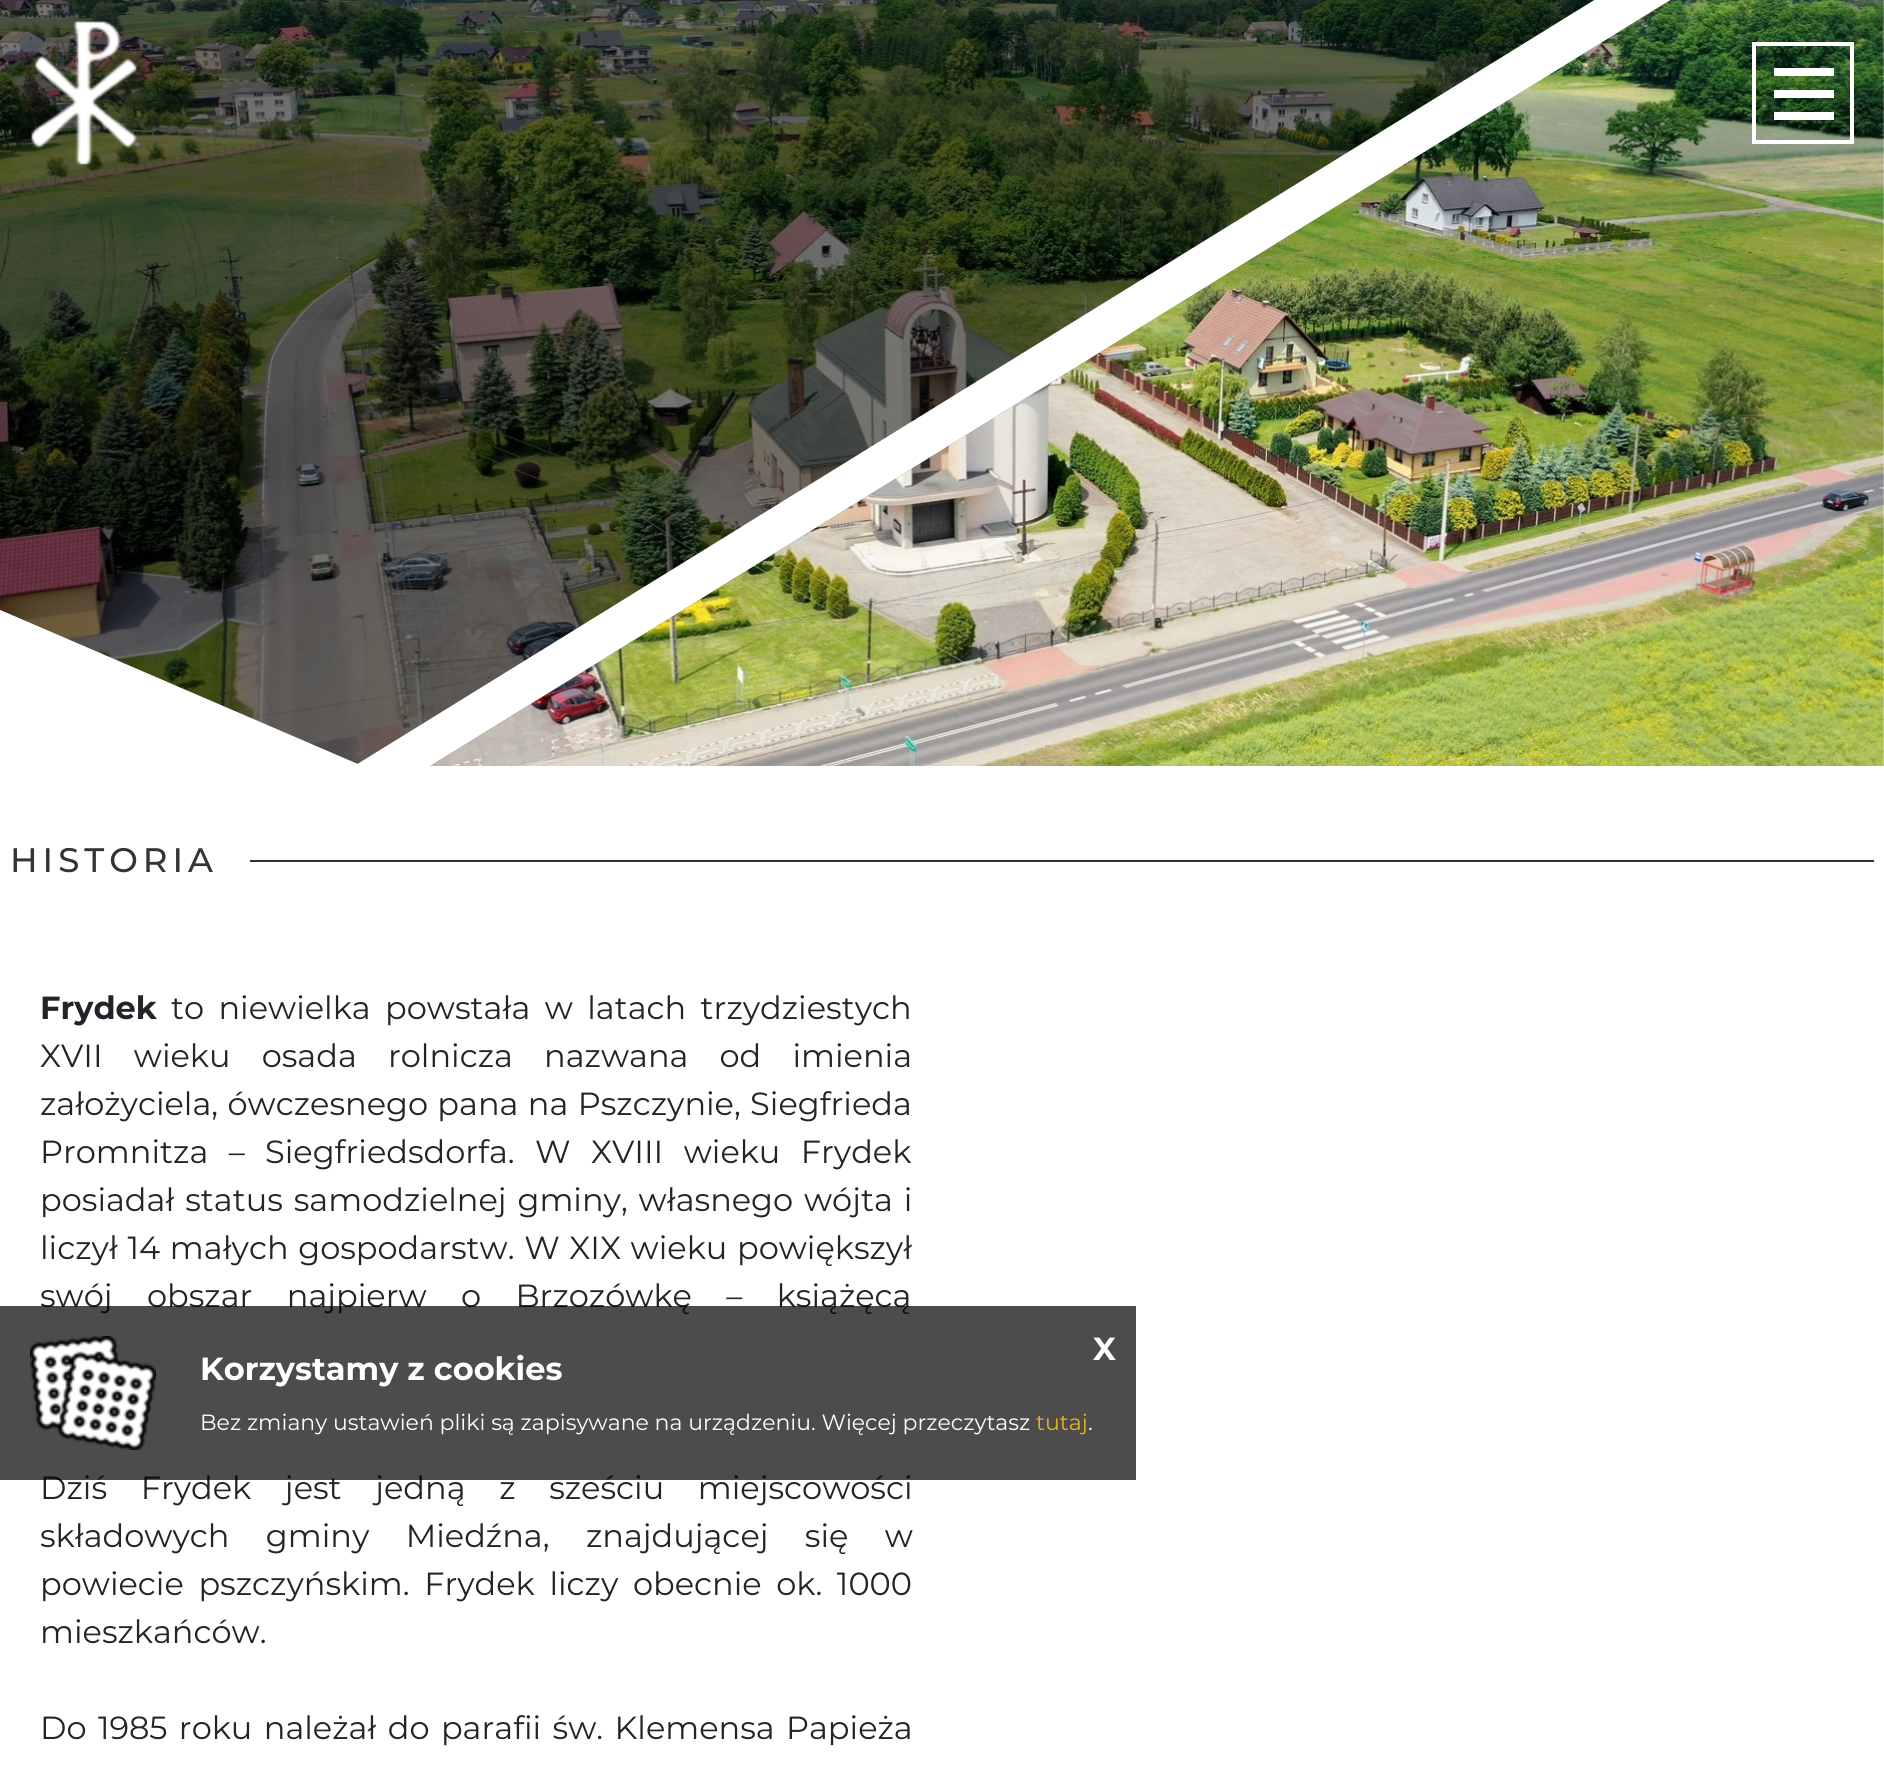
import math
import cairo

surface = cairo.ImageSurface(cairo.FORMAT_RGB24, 1884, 1780)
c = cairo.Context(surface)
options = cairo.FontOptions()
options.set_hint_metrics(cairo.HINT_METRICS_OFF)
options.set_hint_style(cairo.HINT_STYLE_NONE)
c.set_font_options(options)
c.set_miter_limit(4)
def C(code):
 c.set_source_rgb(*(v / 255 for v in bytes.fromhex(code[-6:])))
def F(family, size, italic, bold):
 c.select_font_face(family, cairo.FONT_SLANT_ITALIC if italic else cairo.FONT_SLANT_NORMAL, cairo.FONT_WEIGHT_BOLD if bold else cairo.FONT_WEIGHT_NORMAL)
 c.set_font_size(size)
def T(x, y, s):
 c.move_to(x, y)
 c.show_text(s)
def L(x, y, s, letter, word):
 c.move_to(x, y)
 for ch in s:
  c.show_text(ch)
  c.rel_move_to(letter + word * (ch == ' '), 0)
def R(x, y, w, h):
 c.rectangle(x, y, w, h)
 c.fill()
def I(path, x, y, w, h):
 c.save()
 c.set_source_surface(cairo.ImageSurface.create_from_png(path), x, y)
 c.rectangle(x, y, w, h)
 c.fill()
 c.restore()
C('ffffff')
c.paint()
I('1.png',0,0,1884,766)
c.save()
c.rectangle(0,0,1884,766)
c.clip()
c.set_source_rgba(0,0,0,0.53)
c.new_path()
c.move_to(-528,217)
c.line_to(1455,-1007)
c.line_to(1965,-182)
c.line_to(-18,1043)
c.close_path()
c.fill()
c.new_path()
c.move_to(-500,223.5)
c.line_to(1448.5,-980)
c.line_to(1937.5,-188.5)
c.line_to(-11,1015)
c.close_path()
C('ffffff')
c.set_line_width(40)
c.stroke()
c.new_path()
c.move_to(-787,688)
c.line_to(-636,336)
c.line_to(525,836)
c.line_to(374,1188)
c.close_path()
c.fill()
c.restore()
I('2.png',31,21,106,144)
c.rectangle(1754,44,98,98)
C('ffffff')
c.set_line_width(4)
c.stroke()
R(1774,68,60,8)
R(1774,90,60,8)
R(1774,112,60,8)
F('Montserrat Medium',34,0,0)
C('343434')
L(10,872,'HISTORIA',5,0)
C('333333')
R(250,860,1624,2)
F('Montserrat',32,0,1)
C('212529')
T(40,1019,'Frydek')
F('Montserrat',32,0,0)
L(171,1019,'to niewielka powstała w latach trzydziestych',0,6)
L(40,1067,'XVII wieku osada rolnicza nazwana od imienia',0,22.75)
L(40,1115,'założyciela, ówczesnego pana na Pszczynie, Siegfrieda',0,1)
L(40,1163,'Promnitza – Siegfriedsdorfa. W XVIII wieku Frydek',0,12)
L(40,1211,'posiadał status samodzielnej gminy, własnego wójta i',0,2.5)
L(40,1259,'liczył 14 małych gospodarstw. W XIX wieku powiększył',0,1.25)
L(40,1307,'swój obszar najpierw o Brzozówkę – książęcą',0,26)
L(40,1499,'Dziś Frydek jest jedną z sześciu miejscowości',0,25.25)
L(40,1547,'składowych gminy Miedźna, znajdującej się w',0,28)
L(40,1595,'powiecie pszczyńskim. Frydek liczy obecnie ok. 1000',0,6.25)
T(40,1643,'mieszkańców.')
L(40,1739,'Do 1985 roku należał do parafii św. Klemensa Papieża',0,3)
c.set_source_rgba(0,0,0,0.7)
R(0,1306,1136,174)
I('3.png',30,1336,126,114)
F('Montserrat',32,0,1)
C('ffffff')
T(1093,1360,'X')
T(200,1380,'Korzystamy z cookies')
F('Montserrat',22,0,0)
T(200,1430,'Bez zmiany ustawień pliki są zapisywane na urządzeniu. Więcej przeczytasz')
C('e2b421')
T(1036,1430,'tutaj')
C('ffffff')
T(1088,1430,'.')
surface.write_to_png('o.png')
